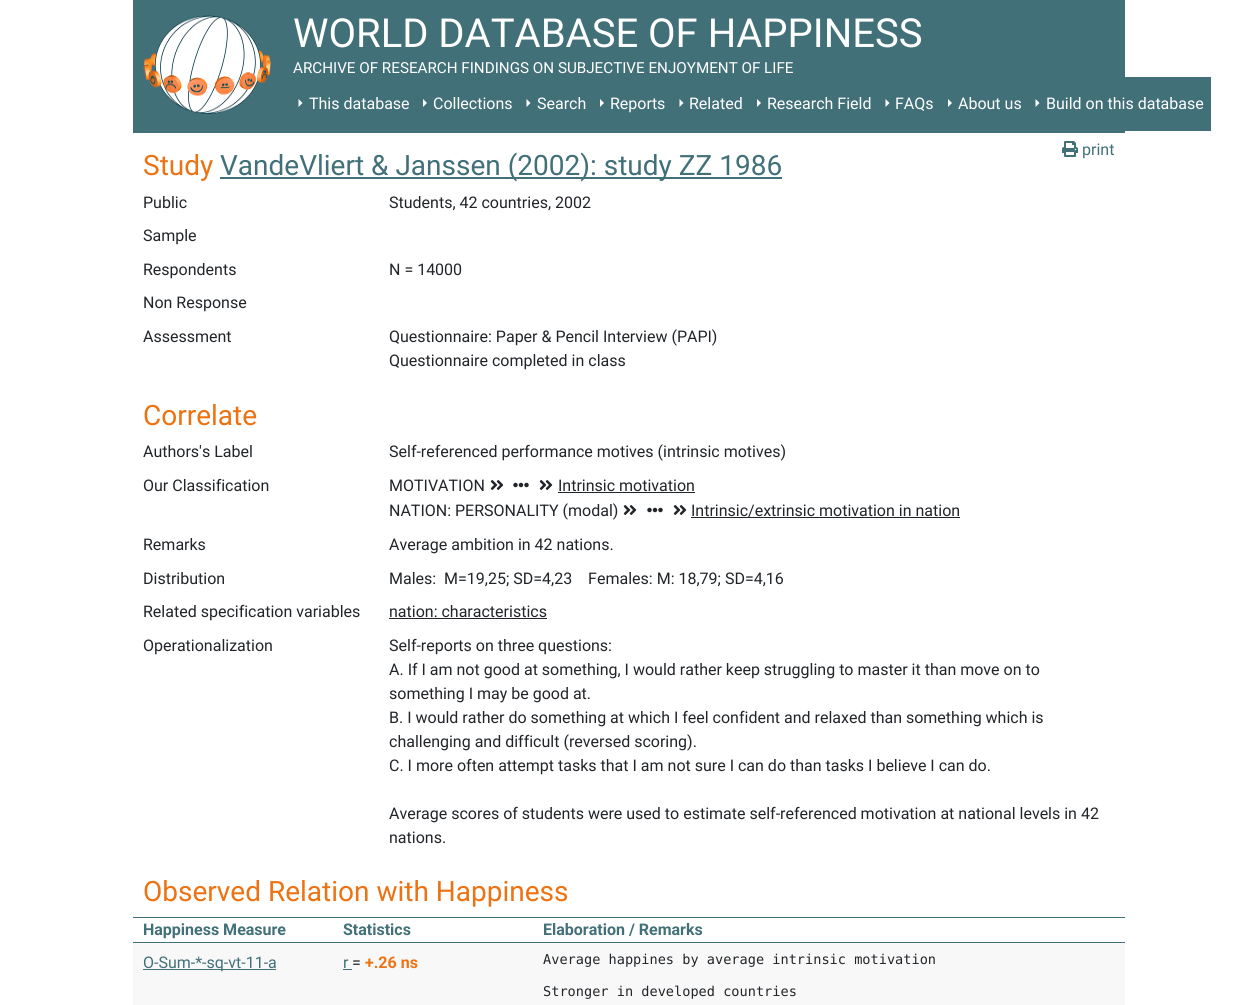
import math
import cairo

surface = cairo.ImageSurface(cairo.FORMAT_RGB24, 1257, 1005)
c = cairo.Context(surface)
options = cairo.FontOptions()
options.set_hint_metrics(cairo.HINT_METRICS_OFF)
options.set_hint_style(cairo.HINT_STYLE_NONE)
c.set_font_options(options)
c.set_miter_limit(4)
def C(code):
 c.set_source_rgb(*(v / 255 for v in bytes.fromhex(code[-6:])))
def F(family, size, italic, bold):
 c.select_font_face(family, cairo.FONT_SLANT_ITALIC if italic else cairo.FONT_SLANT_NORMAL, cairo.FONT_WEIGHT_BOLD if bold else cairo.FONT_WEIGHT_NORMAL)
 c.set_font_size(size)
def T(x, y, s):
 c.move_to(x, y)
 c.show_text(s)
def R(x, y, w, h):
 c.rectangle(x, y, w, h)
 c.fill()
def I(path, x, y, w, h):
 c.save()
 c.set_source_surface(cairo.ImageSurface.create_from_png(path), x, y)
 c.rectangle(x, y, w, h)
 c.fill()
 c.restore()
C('ffffff')
c.paint()
C('417078')
R(133,0,992,133)
I('1.png',143,15,128,99)
F('Roboto',40,0,0)
C('ffffff')
T(293,47,'WORLD DATABASE OF HAPPINESS')
F('Roboto',15.2,0,0)
T(293,73,'ARCHIVE OF RESEARCH FINDINGS ON SUBJECTIVE ENJOYMENT OF LIFE')
C('417078')
R(1125,77,86,54)
C('ffffff')
c.new_path()
c.move_to(298.5,107)
c.line_to(298.5,99)
c.line_to(302.5,103)
c.close_path()
c.fill()
F('Roboto',16,0,0)
T(309,109,'This database')
c.new_path()
c.move_to(423,107)
c.line_to(423,99)
c.line_to(427,103)
c.close_path()
c.fill()
T(433,109,'Collections')
c.new_path()
c.move_to(526.5,107)
c.line_to(526.5,99)
c.line_to(530.5,103)
c.close_path()
c.fill()
T(537,109,'Search')
c.new_path()
c.move_to(600,107)
c.line_to(600,99)
c.line_to(604,103)
c.close_path()
c.fill()
T(610,109,'Reports')
c.new_path()
c.move_to(679.5,107)
c.line_to(679.5,99)
c.line_to(683.5,103)
c.close_path()
c.fill()
T(689,109,'Related')
c.new_path()
c.move_to(757,107)
c.line_to(757,99)
c.line_to(761,103)
c.close_path()
c.fill()
T(767,109,'Research Field')
c.new_path()
c.move_to(885.5,107)
c.line_to(885.5,99)
c.line_to(889.5,103)
c.close_path()
c.fill()
T(895,109,'FAQs')
c.new_path()
c.move_to(948,107)
c.line_to(948,99)
c.line_to(952,103)
c.close_path()
c.fill()
T(958,109,'About us')
c.new_path()
c.move_to(1035.5,107)
c.line_to(1035.5,99)
c.line_to(1039.5,103)
c.close_path()
c.fill()
T(1046,109,'Build on this database')
I('2.png',1062,141,16,16)
C('417078')
T(1082,155,'print')
F('Roboto',28,0,0)
C('ed7212')
T(143,175,'Study')
C('417078')
R(220,177,562,2)
T(220,175,'VandeVliert & Janssen (2002): study ZZ 1986')
F('Roboto',16,0,0)
C('212529')
T(143,208,'Public')
T(389,208,'Students, 42 countries, 2002')
T(143,241,'Sample')
T(143,275,'Respondents')
T(389,275,'N = 14000')
T(143,308,'Non Response')
T(143,342,'Assessment')
T(389,342,'Questionnaire: Paper & Pencil Interview (PAPI)')
T(389,366,'Questionnaire completed in class')
F('Roboto',28,0,0)
C('ed7212')
T(143,425,'Correlate')
F('Roboto',16,0,0)
C('212529')
T(143,457,'Authors\'s Label')
T(389,457,'Self-referenced performance motives (intrinsic motives)')
T(143,491,'Our Classification')
T(389,491,'MOTIVATION')
I('3.png',490,480,14,10)
I('4.png',513,482,16,6)
I('3.png',539,480,14,10)
T(558,491,'Intrinsic motivation')
R(558,492,137,1)
T(389,516,'NATION: PERSONALITY (modal)')
I('3.png',623,505,14,10)
I('4.png',647,507,16,6)
I('3.png',673,505,14,10)
T(691,516,'Intrinsic/extrinsic motivation in nation')
R(691,517,269,1)
T(143,550,'Remarks')
T(389,550,'Average ambition in 42 nations.')
T(143,584,'Distribution')
T(389,584,'Males:  M=19,25; SD=4,23    Females: M: 18,79; SD=4,16')
T(143,617,'Related specification variables')
T(389,617,'nation: characteristics')
R(389,618,158,1)
T(143,651,'Operationalization')
T(389,651,'Self-reports on three questions:')
T(389,675,'A. If I am not good at something, I would rather keep struggling to master it than move on to')
T(389,699,'something I may be good at.')
T(389,723,'B. I would rather do something at which I feel confident and relaxed than something which is')
T(389,747,'challenging and difficult (reversed scoring).')
T(389,771,'C. I more often attempt tasks that I am not sure I can do than tasks I believe I can do.')
T(389,819,'Average scores of students were used to estimate self-referenced motivation at national levels in 42')
T(389,843,'nations.')
F('Roboto',28,0,0)
C('ed7212')
T(143,901,'Observed Relation with Happiness')
C('417078')
R(133,917,992,1)
R(133,942,992,1)
F('Roboto',16,0,1)
T(143,935,'Happiness Measure')
T(343,935,'Statistics')
T(543,935,'Elaboration / Remarks')
C('f8f8f8')
R(133,943,992,62)
C('417078')
R(143,969,133,1)
F('Roboto',16,0,0)
T(143,968,'O-Sum-*-sq-vt-11-a')
T(343,968,'r')
R(343,969,9,1)
C('212529')
T(352,968,'=')
F('Roboto',16,0,1)
C('ed7212')
T(365,968,'+.26 ns')
F('DejaVu Sans Mono',13.6,0,0)
C('212529')
T(543,964,'Average happines by average intrinsic motivation')
T(543,996,'Stronger in developed countries')
surface.write_to_png('o.png')
